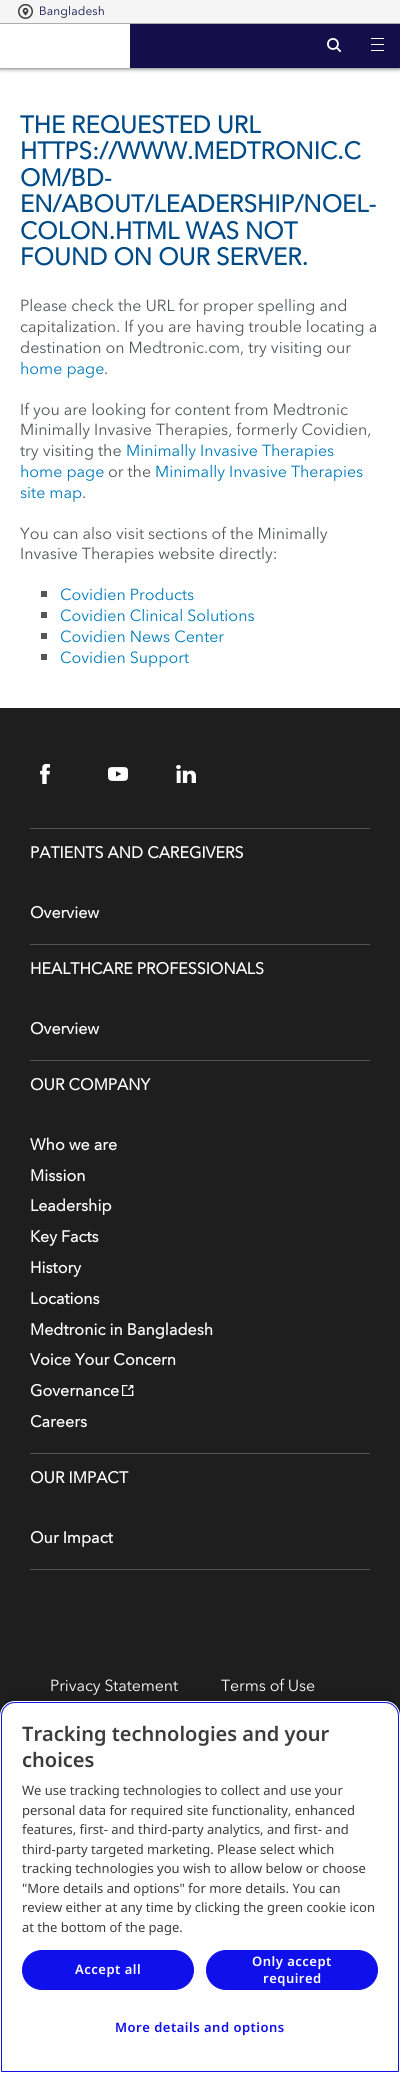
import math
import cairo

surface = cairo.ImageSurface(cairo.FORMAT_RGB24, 400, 2073)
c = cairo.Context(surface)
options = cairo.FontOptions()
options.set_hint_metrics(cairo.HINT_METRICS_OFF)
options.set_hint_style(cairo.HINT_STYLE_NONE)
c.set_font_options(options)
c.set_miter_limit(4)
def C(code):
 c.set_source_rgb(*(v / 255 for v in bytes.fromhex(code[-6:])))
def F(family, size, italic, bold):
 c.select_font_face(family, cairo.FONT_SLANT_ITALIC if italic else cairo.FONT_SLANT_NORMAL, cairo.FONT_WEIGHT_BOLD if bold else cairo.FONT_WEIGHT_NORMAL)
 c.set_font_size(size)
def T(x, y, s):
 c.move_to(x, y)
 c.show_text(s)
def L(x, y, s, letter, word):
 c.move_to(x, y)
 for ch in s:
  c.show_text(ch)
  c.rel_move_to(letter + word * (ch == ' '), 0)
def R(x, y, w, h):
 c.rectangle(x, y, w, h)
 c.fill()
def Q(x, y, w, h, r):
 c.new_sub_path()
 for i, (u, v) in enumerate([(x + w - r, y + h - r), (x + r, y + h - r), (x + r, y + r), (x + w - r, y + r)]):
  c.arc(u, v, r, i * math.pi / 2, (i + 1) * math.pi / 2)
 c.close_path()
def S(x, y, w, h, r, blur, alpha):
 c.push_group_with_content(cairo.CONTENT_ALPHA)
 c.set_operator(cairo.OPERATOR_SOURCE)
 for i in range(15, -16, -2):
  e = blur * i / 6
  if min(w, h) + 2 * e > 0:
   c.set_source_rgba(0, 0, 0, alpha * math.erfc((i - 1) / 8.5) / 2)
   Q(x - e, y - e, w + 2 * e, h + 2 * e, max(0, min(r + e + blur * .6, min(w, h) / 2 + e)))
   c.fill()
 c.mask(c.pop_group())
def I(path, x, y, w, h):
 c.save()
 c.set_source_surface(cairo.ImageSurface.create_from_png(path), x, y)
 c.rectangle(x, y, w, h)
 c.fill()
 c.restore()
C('ffffff')
c.paint()
c.save()
c.set_fill_rule(cairo.FILL_RULE_EVEN_ODD)
c.new_path()
c.move_to(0,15)
c.line_to(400,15)
c.line_to(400,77)
c.line_to(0,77)
c.close_path()
c.move_to(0,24)
c.line_to(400,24)
c.line_to(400,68)
c.line_to(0,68)
c.close_path()
c.clip()
C('3c3c3c')
S(0,24,400,44,0,2.5,1)
c.restore()
C('140f4b')
R(130,24,270,44)
C('f5f5f5')
R(0,0,400,23)
I('1.png',18,3,15,16)
F('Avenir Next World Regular',12,0,0)
C('140f4b')
L(39,15,'Bangladesh',.1,0)
I('2.png',327,38,14,14)
C('ffffff')
R(371,38,13,1)
R(371,44,13,1)
R(371,50,13,1)
F('Avenir Next World Regular',24,0,1)
C('004b87')
T(20,133,'THE REQUESTED URL')
T(20,159,'HTTPS://WWW.MEDTRONIC.C')
T(20,186,'OM/BD-')
T(20,212,'EN/ABOUT/LEADERSHIP/NOEL-')
T(20,239,'COLON.HTML WAS NOT')
T(20,265,'FOUND ON OUR SERVER.')
F('Avenir Next World Regular',16,0,0)
C('53565a')
T(20,311,'Please check the URL for proper spelling and')
T(20,332,'capitalization. If you are having trouble locating a')
T(20,353,'destination on Medtronic.com, try visiting our')
C('007cbd')
T(20,374,'home page')
C('53565a')
T(104,374,'.')
T(20,415,'If you are looking for content from Medtronic')
T(20,435,'Minimally Invasive Therapies, formerly Covidien,')
T(20,456,'try visiting the')
C('007cbd')
T(126,456,'Minimally Invasive Therapies')
T(20,477,'home page')
C('53565a')
T(108,477,'or the')
C('007cbd')
T(155,477,'Minimally Invasive Therapies')
T(20,498,'site map')
C('53565a')
T(82,498,'.')
T(20,539,'You can also visit sections of the Minimally')
T(20,559,'Invasive Therapies website directly:')
R(41,591,6,6)
C('007cbd')
T(60,600,'Covidien Products')
C('53565a')
R(41,612,6,6)
C('007cbd')
T(60,621,'Covidien Clinical Solutions')
C('53565a')
R(41,633,6,6)
C('007cbd')
T(60,642,'Covidien News Center')
C('53565a')
R(41,654,6,6)
C('007cbd')
T(60,663,'Covidien Support')
C('1e1e1e')
R(0,708,400,1008)
C('545454')
R(30,828,340,1)
I('3.png',40,764,10,20)
I('4.png',108,767,20,14)
I('5.png',176,765,20,18)
R(30,944,340,1)
F('Avenir Next World Regular',16,0,1)
C('ffffff')
T(30,858,'PATIENTS AND CAREGIVERS')
T(30,918,'Overview')
C('545454')
R(30,1060,340,1)
C('ffffff')
T(30,974,'HEALTHCARE PROFESSIONALS')
T(30,1034,'Overview')
C('545454')
R(30,1453,340,1)
C('ffffff')
T(30,1090,'OUR COMPANY')
T(30,1150,'Who we are')
T(30,1181,'Mission')
T(30,1211,'Leadership')
T(30,1242,'Key Facts')
T(30,1273,'History')
T(30,1304,'Locations')
T(30,1335,'Medtronic in Bangladesh')
T(30,1365,'Voice Your Concern')
T(30,1396,'Governance')
I('6.png',122,1385,12,11)
T(30,1427,'Careers')
C('545454')
R(30,1569,340,1)
C('ffffff')
T(30,1483,'OUR IMPACT')
T(30,1543,'Our Impact')
F('Avenir Next World Regular',16,0,0)
L(50,1691,'Privacy Statement',-.1,0)
L(221,1691,'Terms of Use',-.1,0)
C('000000')
S(0,1701,400,372,15,9,.2)
C('ffffff')
c.new_path()
c.move_to(15,1701)
c.line_to(385,1701)
c.curve_to(393.5,1701,400,1707.5,400,1716)
c.line_to(400,2071)
c.curve_to(400,2072,399,2073,398,2073)
c.line_to(2,2073)
c.curve_to(1,2073,0,2072,0,2071)
c.line_to(0,1716)
c.curve_to(0,1707.5,6.5,1701,15,1701)
c.close_path()
c.fill()
c.new_path()
c.move_to(15,1702.5)
c.line_to(385,1702.5)
c.curve_to(392.5,1702.5,398.5,1708.5,398.5,1716)
c.line_to(398.5,2071)
c.curve_to(398.5,2071.5,398.5,2071.5,398,2071.5)
c.line_to(2,2071.5)
c.curve_to(1.5,2071.5,1.5,2071.5,1.5,2071)
c.line_to(1.5,1716)
c.curve_to(1.5,1708.5,7.5,1702.5,15,1702.5)
c.close_path()
C('1010eb')
c.set_line_width(1)
c.stroke()
F('Noto Sans SemiBold',20,0,0)
C('3c3c3c')
T(22,1741,'Tracking technologies and your')
T(22,1767,'choices')
F('Noto Sans',13,0,0)
T(22,1795,'We use tracking technologies to collect and use your')
T(22,1815,'personal data for required site functionality, enhanced')
T(22,1834,'features, first- and third-party analytics, and first- and')
T(22,1854,'third-party targeted marketing. Please select which')
T(22,1873,'tracking technologies you wish to allow below or choose')
T(22,1893,'"More details and options" for more details. You can')
T(22,1912,'review either at any time by clicking the green cookie icon')
T(22,1932,'at the bottom of the page.')
C('1010eb')
Q(22.5,1950.5,171,39,19.5)
c.fill_preserve()
c.stroke()
F('Noto Sans SemiBold',13,0,0)
C('ffffff')
L(75,1974,'Accept all',.5,0)
C('1010eb')
Q(206.5,1950.5,171,39,19.5)
c.fill_preserve()
c.stroke()
C('ffffff')
L(252,1966,'Only accept',.5,0)
L(263,1983,'required',.5,0)
C('1010eb')
L(115,2032,'More details and options',.5,0)
surface.write_to_png('o.png')
